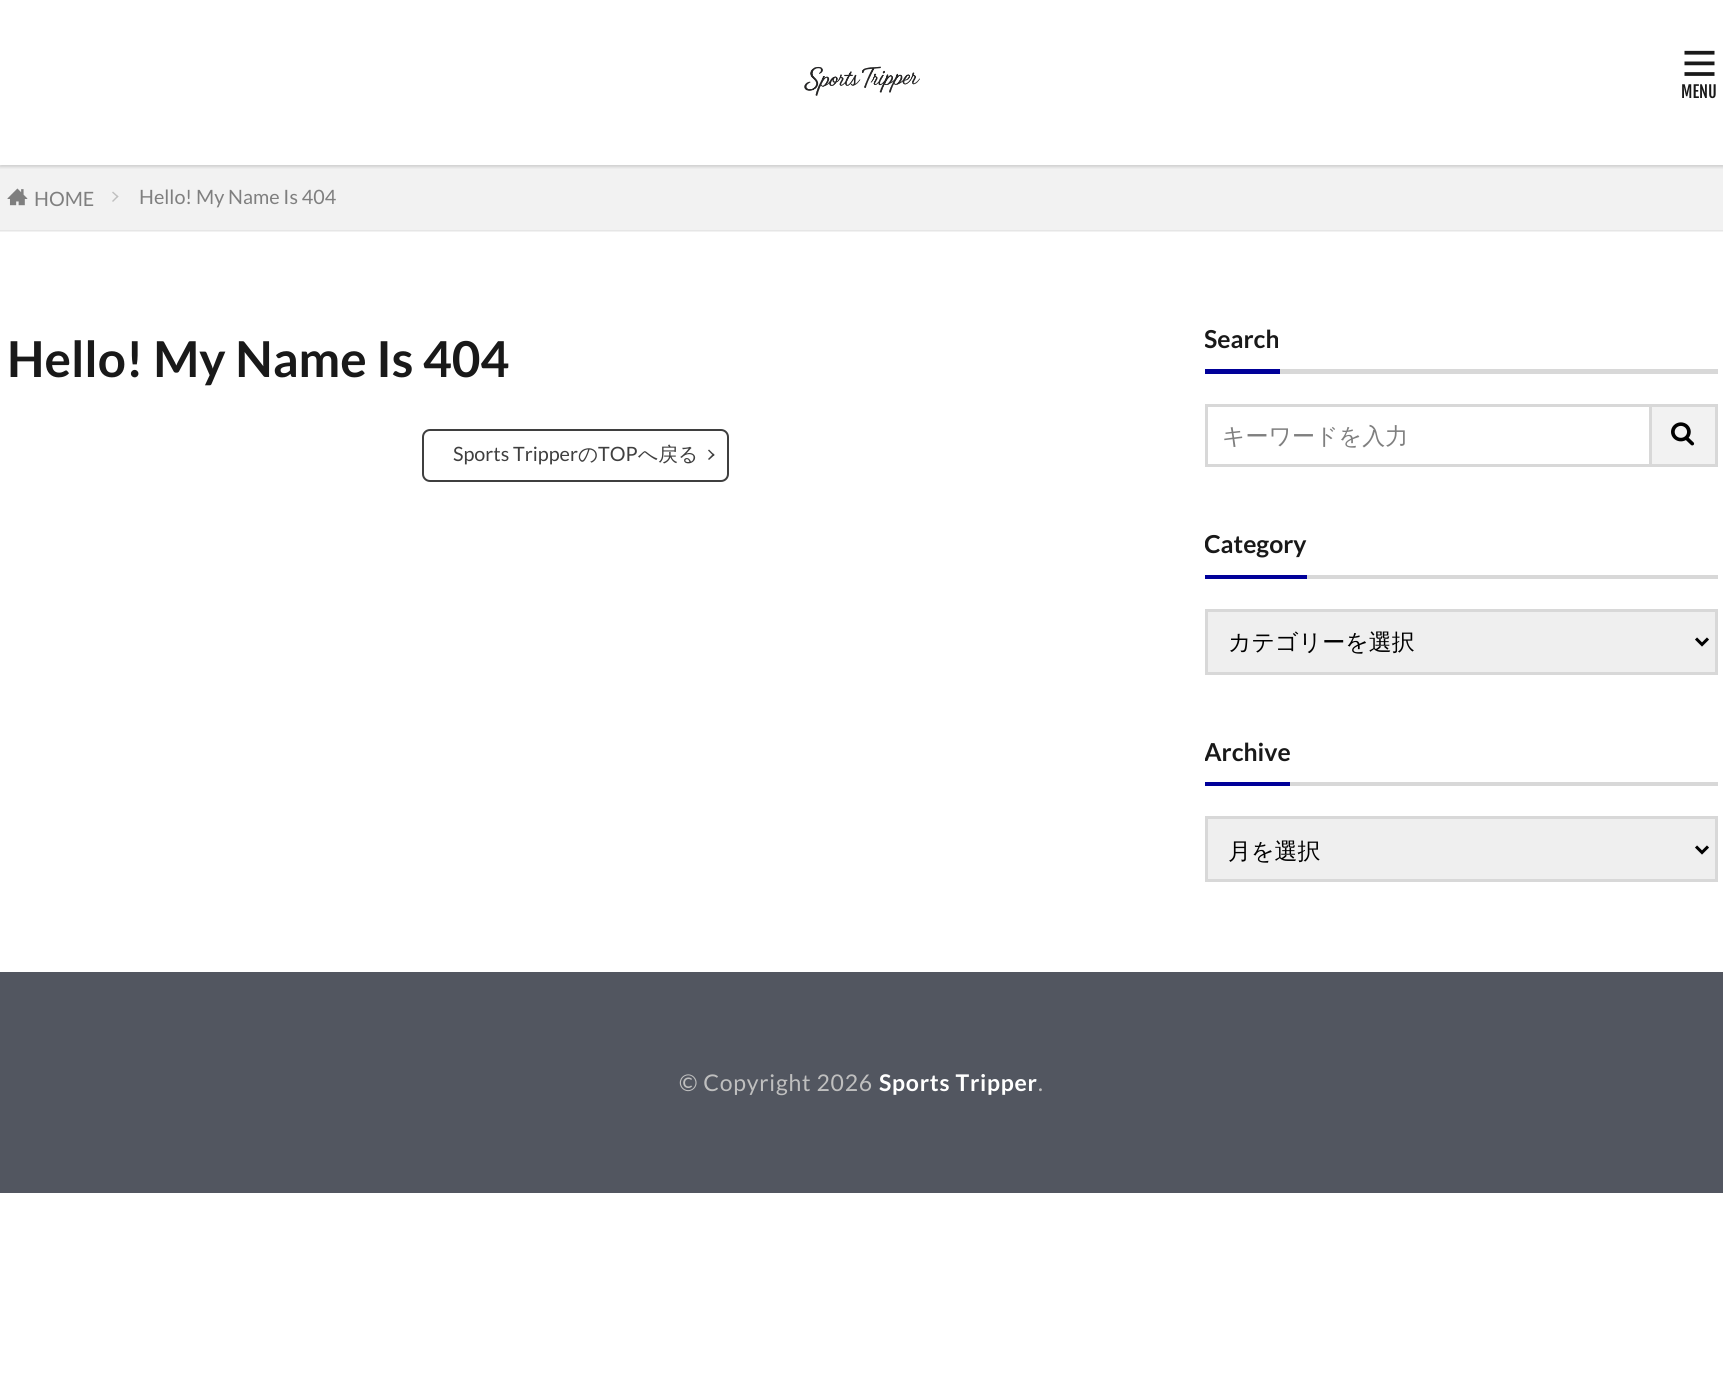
import math
import cairo

surface = cairo.ImageSurface(cairo.FORMAT_RGB24, 1723, 1387)
c = cairo.Context(surface)
options = cairo.FontOptions()
options.set_hint_metrics(cairo.HINT_METRICS_OFF)
options.set_hint_style(cairo.HINT_STYLE_NONE)
c.set_font_options(options)
c.set_miter_limit(4)
def C(code):
 c.set_source_rgb(*(v / 255 for v in bytes.fromhex(code[-6:])))
def F(family, size, italic, bold):
 c.select_font_face(family, cairo.FONT_SLANT_ITALIC if italic else cairo.FONT_SLANT_NORMAL, cairo.FONT_WEIGHT_BOLD if bold else cairo.FONT_WEIGHT_NORMAL)
 c.set_font_size(size)
def T(x, y, s):
 c.move_to(x, y)
 c.show_text(s)
def L(x, y, s, letter, word):
 c.move_to(x, y)
 for ch in s:
  c.show_text(ch)
  c.rel_move_to(letter + word * (ch == ' '), 0)
def R(x, y, w, h):
 c.rectangle(x, y, w, h)
 c.fill()
def Q(x, y, w, h, r):
 c.new_sub_path()
 for i, (u, v) in enumerate([(x + w - r, y + h - r), (x + r, y + h - r), (x + r, y + r), (x + w - r, y + r)]):
  c.arc(u, v, r, i * math.pi / 2, (i + 1) * math.pi / 2)
 c.close_path()
def S(x, y, w, h, r, blur, alpha):
 c.push_group_with_content(cairo.CONTENT_ALPHA)
 c.set_operator(cairo.OPERATOR_SOURCE)
 for i in range(15, -16, -2):
  e = blur * i / 6
  if min(w, h) + 2 * e > 0:
   c.set_source_rgba(0, 0, 0, alpha * math.erfc((i - 1) / 8.5) / 2)
   Q(x - e, y - e, w + 2 * e, h + 2 * e, max(0, min(r + e + blur * .6, min(w, h) / 2 + e)))
   c.fill()
 c.mask(c.pop_group())
def I(path, x, y, w, h):
 c.save()
 c.set_source_surface(cairo.ImageSurface.create_from_png(path), x, y)
 c.rectangle(x, y, w, h)
 c.fill()
 c.restore()
C('ffffff')
c.paint()
C('f2f2f2')
R(0,231,1723,1)
R(0,165,1723,65)
c.save()
c.rectangle(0,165,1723,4)
c.clip()
C('000000')
S(0,2,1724,165,0,1.5,.15)
c.restore()
I('1.png',804,66,116,30)
I('2.png',1684,50,31,26)
F('Fjalla One',16.5,0,0)
C('191919')
T(1681,98,'MENU')
C('e6e6e6')
R(0,230,1723,1)
I('3.png',7,188,21,18)
F('Lato',19.75,0,0)
C('7f7f7f')
T(34,206,'HOME')
C('bfbfbf')
c.new_path()
c.move_to(113,191.5)
c.line_to(118.5,196.5)
c.line_to(117.5,197.5)
c.line_to(112,192.5)
c.close_path()
c.fill()
c.new_path()
c.move_to(117.5,195.5)
c.line_to(118.5,196.5)
c.line_to(113,202)
c.line_to(112,201)
c.close_path()
c.fill()
C('7f7f7f')
T(139,204,'Hello! My Name Is 404')
F('Lato',49.5,0,1)
C('191919')
T(7,377,'Hello! My Name Is 404')
Q(423,430,305,51,7)
C('3f3f3f')
c.stroke()
F('Lato',19.75,0,0)
T(453,461,'Sports Tripper')
F('WenQuanYi Zen Hei Medium',19.75,0,0)
T(578,461,'の')
F('Lato',19.75,0,0)
T(598,461,'TOP')
F('WenQuanYi Zen Hei Medium',19.75,0,0)
T(638,461,'へ戻る')
c.new_path()
c.move_to(709,449.5)
c.line_to(714.5,455)
c.line_to(713.5,456)
c.line_to(708,450.5)
c.close_path()
c.fill()
c.new_path()
c.move_to(713.5,453.5)
c.line_to(714.5,455)
c.line_to(709,460)
c.line_to(708,459)
c.close_path()
c.fill()
c.save()
c.rectangle(1205,321,513,53)
c.clip()
F('Lato',24.75,0,1)
C('191919')
T(1204,348,'Search')
c.restore()
C('000099')
R(1205,369,75,5)
C('d8d8d8')
R(1280,369,438,5)
c.rectangle(1206.5,405.5,444,60)
c.set_line_width(3)
c.stroke()
F('WenQuanYi Zen Hei Medium',23,0,0)
C('7f7f7f')
T(1222,444,'キーワードを入力')
C('f2f2f2')
R(1652,407,63,57)
C('d8d8d8')
R(1652,404,66,3)
R(1715,404,3,63)
R(1652,464,66,3)
I('4.png',1671,422,24,24)
c.save()
c.rectangle(1205,527,513,52)
c.clip()
F('Lato',24.75,0,1)
C('191919')
T(1204,553,'Category')
c.restore()
C('000099')
R(1205,575,102,4)
C('d8d8d8')
R(1307,575,411,4)
C('efefef')
c.rectangle(1206.5,610.5,510,63)
c.fill_preserve()
C('d8d8d8')
c.stroke()
c.new_path()
c.move_to(1696,638.5)
c.line_to(1702,644.5)
c.line_to(1708,638.5)
C('000000')
c.stroke()
T(1228,650,'カテゴリーを選択')
c.save()
c.rectangle(1205,735,513,51)
c.clip()
F('Lato',24.75,0,1)
C('191919')
T(1204,761,'Archive')
c.restore()
C('000099')
R(1205,782,85,4)
C('d8d8d8')
R(1290,782,428,4)
C('efefef')
c.rectangle(1206.5,817.5,510,63)
c.fill_preserve()
C('d8d8d8')
c.stroke()
c.new_path()
c.move_to(1696,846.5)
c.line_to(1702,852.5)
c.line_to(1708,846.5)
C('000000')
c.stroke()
T(1228,859,'月を選択')
C('525660')
R(0,972,1723,221)
F('Lato',23,0,0)
C('bfbfbf')
L(679,1091,'© Copyright 2026',.75,0)
F('Lato',23,0,1)
C('ffffff')
L(879,1091,'Sports Tripper',.75,0)
F('Lato',23,0,0)
C('bfbfbf')
L(1038,1091,'.',.75,0)
surface.write_to_png('o.png')
